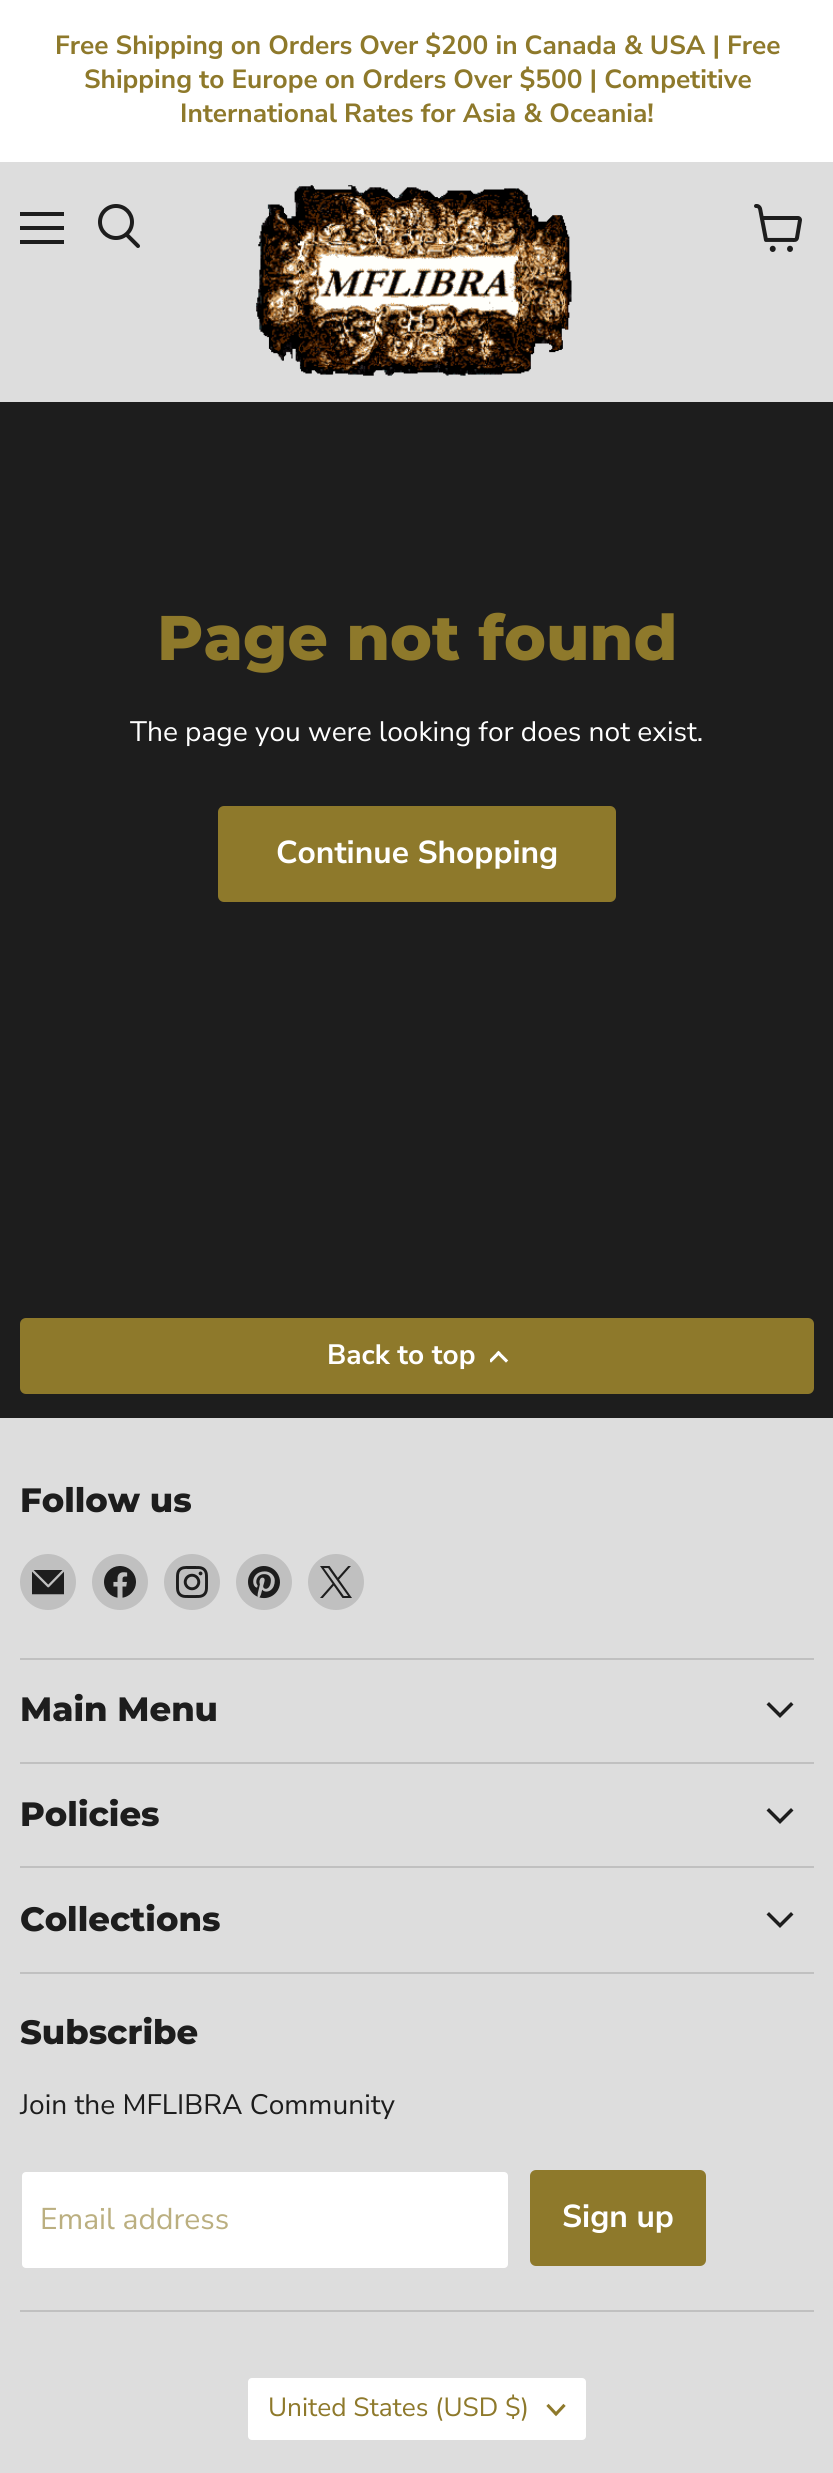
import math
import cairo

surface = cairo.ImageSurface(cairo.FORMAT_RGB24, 833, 2473)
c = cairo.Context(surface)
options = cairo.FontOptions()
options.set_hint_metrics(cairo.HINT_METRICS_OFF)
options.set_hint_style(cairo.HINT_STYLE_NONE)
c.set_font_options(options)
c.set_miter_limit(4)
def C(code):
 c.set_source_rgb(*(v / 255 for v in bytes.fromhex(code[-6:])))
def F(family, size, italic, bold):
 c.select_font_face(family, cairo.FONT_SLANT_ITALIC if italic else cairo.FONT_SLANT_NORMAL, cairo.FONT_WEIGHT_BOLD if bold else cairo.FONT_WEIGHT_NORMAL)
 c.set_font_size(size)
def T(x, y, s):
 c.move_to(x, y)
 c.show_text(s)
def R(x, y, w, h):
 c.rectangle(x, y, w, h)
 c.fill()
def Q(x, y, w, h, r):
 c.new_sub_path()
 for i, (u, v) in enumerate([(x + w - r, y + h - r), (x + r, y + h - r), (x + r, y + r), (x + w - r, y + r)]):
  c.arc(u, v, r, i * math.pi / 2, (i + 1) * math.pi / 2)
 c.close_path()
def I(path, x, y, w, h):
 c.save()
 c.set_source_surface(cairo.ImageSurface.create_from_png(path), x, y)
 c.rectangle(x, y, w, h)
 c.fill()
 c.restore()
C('1d1d1d')
c.paint()
C('ffffff')
R(0,0,833,162)
F('Nunito Sans',26.25,0,1)
C('8e792b')
T(55,54,'Free Shipping on Orders Over $200 in Canada & USA | Free')
T(84,88,'Shipping to Europe on Orders Over $500 | Competitive')
T(180,122,'International Rates for Asia & Oceania!')
C('dddddd')
R(0,162,833,240)
C('1d1d1d')
R(20,212,44,4)
R(20,226,44,4)
R(20,240,44,4)
c.new_path()
c.move_to(138,246)
c.line_to(127,235)
c.set_line_width(4)
c.set_line_cap(cairo.LINE_CAP_ROUND)
c.stroke()
c.arc(116,222,16,0,2 * math.pi)
c.set_line_cap(cairo.LINE_CAP_BUTT)
c.stroke()
I('1.png',256,185,316,191)
I('2.png',754,204,48,48)
F('Montserrat ExtraBold',63,0,0)
C('8e792b')
T(157,660,'Page not found')
F('Nunito Sans',28.1,0,0)
C('ffffff')
T(130,741,'The page you were looking for does not exist.')
C('8e792b')
Q(219,807,396,94,5)
c.fill_preserve()
c.set_line_width(2)
c.stroke()
F('Nunito Sans',31.75,0,1)
C('ffffff')
T(276,863,'Continue Shopping')
C('8e792b')
Q(21,1319,792,74,5)
c.fill_preserve()
c.stroke()
F('Nunito Sans',28,0,1)
C('ffffff')
T(327,1364,'Back to top')
c.save()
c.rectangle(490,1348,20,16)
c.clip()
c.new_path()
c.move_to(498.5,1353)
c.line_to(491,1360.5)
c.set_line_width(3.1)
c.set_line_cap(cairo.LINE_CAP_SQUARE)
c.stroke()
c.restore()
c.new_path()
c.move_to(498.5,1353)
c.line_to(506,1360.5)
c.set_line_width(3.1)
c.set_line_cap(cairo.LINE_CAP_SQUARE)
c.stroke()
C('dddddd')
R(0,1418,833,1055)
C('c0c0c0')
R(20,1658,794,2)
F('Montserrat ExtraBold',33.75,0,0)
C('1d1d1d')
T(20,1512,'Follow us')
C('c0c0c0')
c.new_path()
c.arc(48,1582,28,0,2 * math.pi)
c.fill()
I('3.png',32,1570,32,25)
c.arc(120,1582,28,0,2 * math.pi)
c.fill()
I('4.png',104,1566,32,32)
c.arc(192,1582,28,0,2 * math.pi)
c.fill()
I('5.png',176,1566,32,32)
c.arc(264,1582,28,0,2 * math.pi)
c.fill()
I('6.png',248,1566,32,33)
c.arc(336,1582,28,0,2 * math.pi)
c.fill()
I('7.png',320,1566,32,32)
R(20,1762,794,2)
C('1d1d1d')
T(20,1721,'Main Menu')
c.new_path()
c.move_to(780,1715.5)
c.line_to(791,1704.5)
c.move_to(780,1715.5)
c.line_to(769,1704.5)
c.set_line_width(3.5)
c.stroke()
C('c0c0c0')
R(20,1866,794,2)
C('1d1d1d')
T(20,1826,'Policies')
c.new_path()
c.move_to(780,1821.5)
c.line_to(791,1810.5)
c.move_to(780,1821.5)
c.line_to(769,1810.5)
c.stroke()
C('c0c0c0')
R(20,1972,794,2)
C('1d1d1d')
T(20,1931,'Collections')
c.new_path()
c.move_to(780,1925.5)
c.line_to(791,1914.5)
c.move_to(780,1925.5)
c.line_to(769,1914.5)
c.stroke()
C('c0c0c0')
R(20,2310,794,2)
C('1d1d1d')
T(20,2044,'Subscribe')
F('Nunito Sans',28.1,0,0)
T(20,2114,'Join the MFLIBRA Community')
C('ffffff')
Q(21,2171,488,98,5)
c.fill_preserve()
C('dddddd')
c.set_line_width(2)
c.set_line_cap(cairo.LINE_CAP_BUTT)
c.stroke()
F('Nunito Sans',30,0,0)
C('bbaf80')
T(40,2229,'Email address')
C('8e792b')
Q(531,2171,174,94,5)
c.fill_preserve()
c.stroke()
F('Nunito Sans',31.75,0,1)
C('ffffff')
T(562,2227,'Sign up')
Q(247,2377,340,64,5)
c.fill_preserve()
C('dddddd')
c.stroke()
F('Nunito Sans',26.25,0,0)
C('8e792b')
T(268,2416,'United States (USD $)')
c.new_path()
c.move_to(556,2414)
c.line_to(563.5,2406)
c.move_to(556,2414)
c.line_to(548.5,2406)
c.set_line_width(3.1)
c.set_line_cap(cairo.LINE_CAP_SQUARE)
c.stroke()
surface.write_to_png('o.png')
